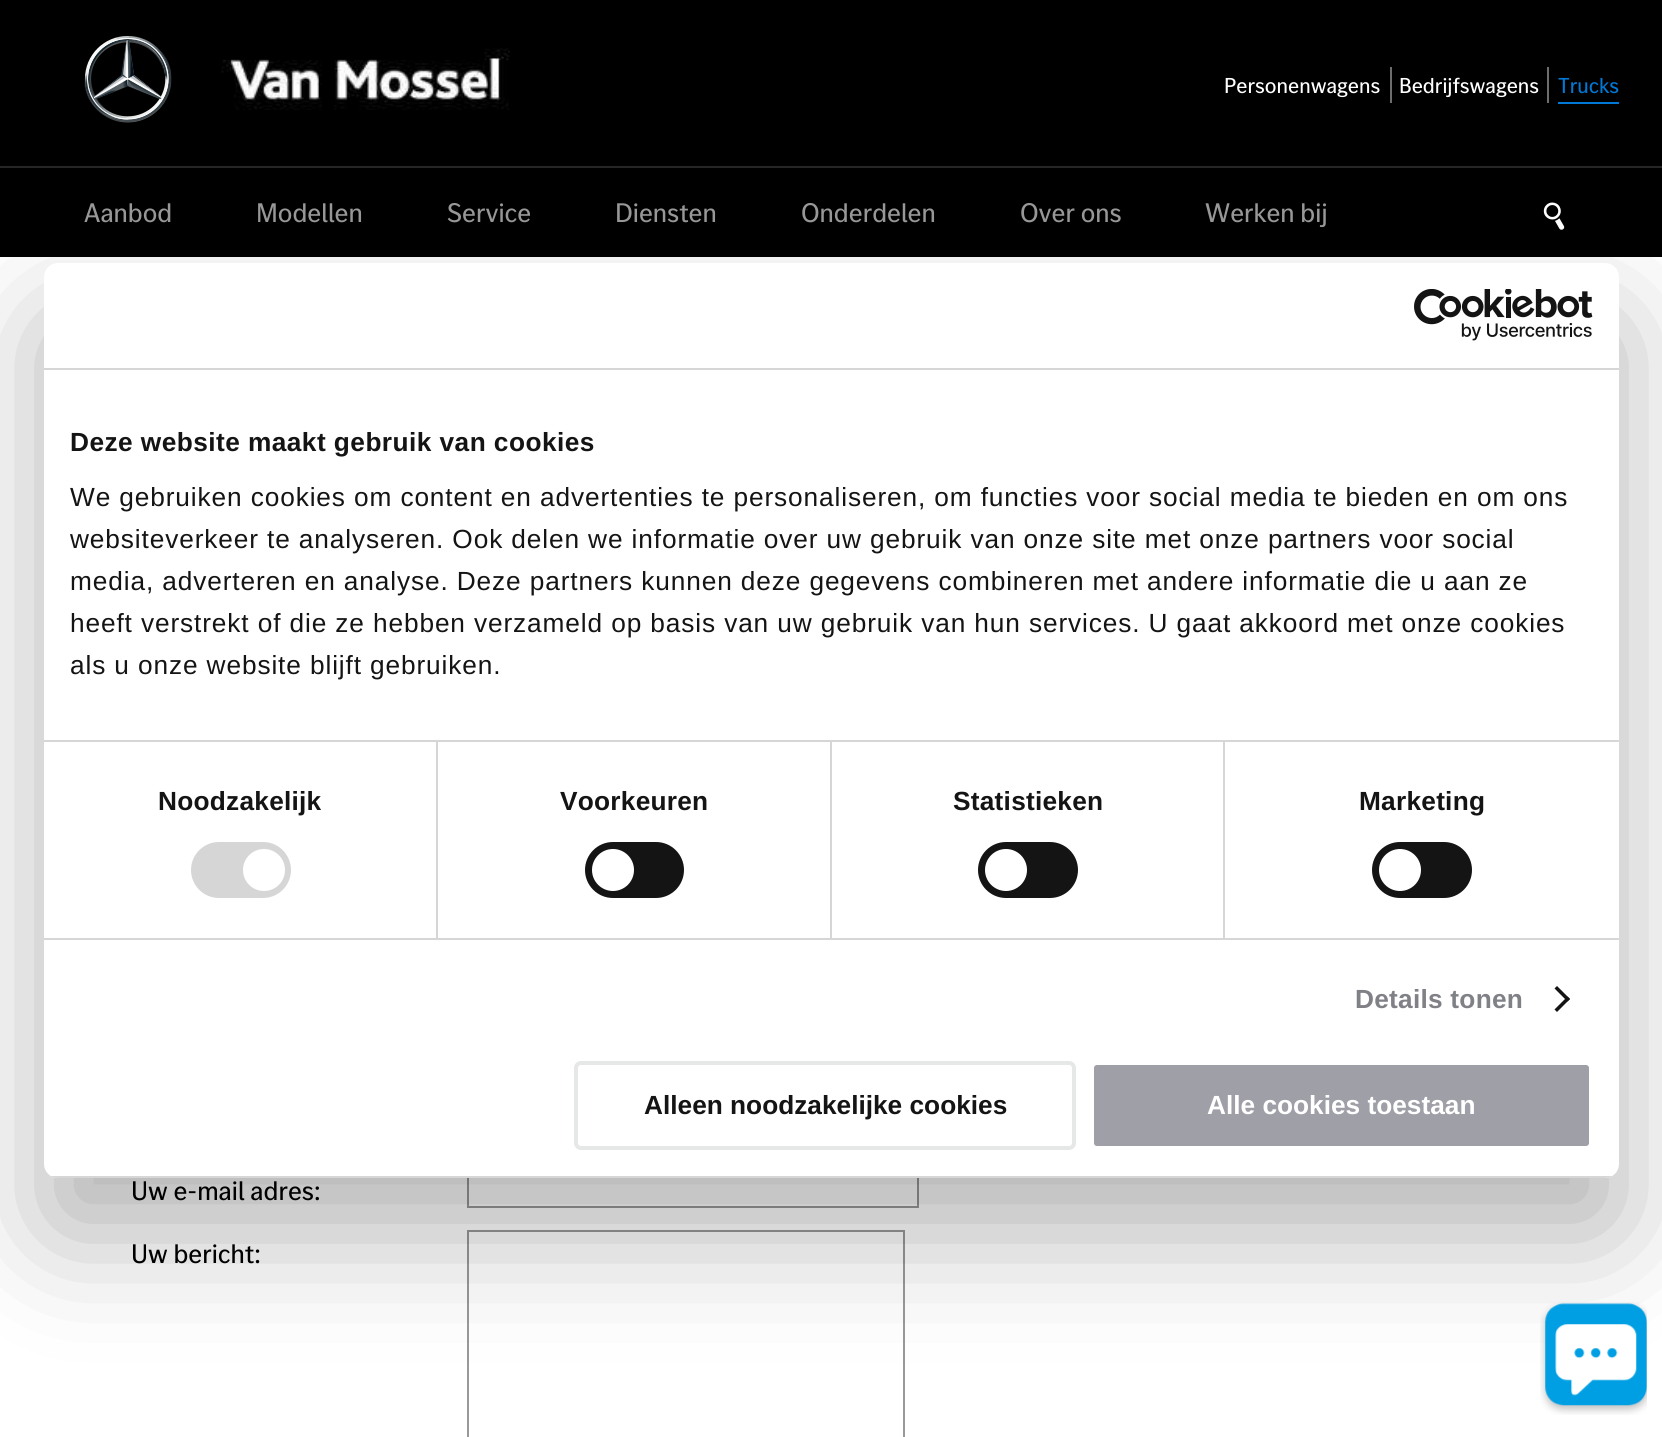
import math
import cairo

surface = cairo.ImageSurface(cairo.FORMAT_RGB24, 1662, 1437)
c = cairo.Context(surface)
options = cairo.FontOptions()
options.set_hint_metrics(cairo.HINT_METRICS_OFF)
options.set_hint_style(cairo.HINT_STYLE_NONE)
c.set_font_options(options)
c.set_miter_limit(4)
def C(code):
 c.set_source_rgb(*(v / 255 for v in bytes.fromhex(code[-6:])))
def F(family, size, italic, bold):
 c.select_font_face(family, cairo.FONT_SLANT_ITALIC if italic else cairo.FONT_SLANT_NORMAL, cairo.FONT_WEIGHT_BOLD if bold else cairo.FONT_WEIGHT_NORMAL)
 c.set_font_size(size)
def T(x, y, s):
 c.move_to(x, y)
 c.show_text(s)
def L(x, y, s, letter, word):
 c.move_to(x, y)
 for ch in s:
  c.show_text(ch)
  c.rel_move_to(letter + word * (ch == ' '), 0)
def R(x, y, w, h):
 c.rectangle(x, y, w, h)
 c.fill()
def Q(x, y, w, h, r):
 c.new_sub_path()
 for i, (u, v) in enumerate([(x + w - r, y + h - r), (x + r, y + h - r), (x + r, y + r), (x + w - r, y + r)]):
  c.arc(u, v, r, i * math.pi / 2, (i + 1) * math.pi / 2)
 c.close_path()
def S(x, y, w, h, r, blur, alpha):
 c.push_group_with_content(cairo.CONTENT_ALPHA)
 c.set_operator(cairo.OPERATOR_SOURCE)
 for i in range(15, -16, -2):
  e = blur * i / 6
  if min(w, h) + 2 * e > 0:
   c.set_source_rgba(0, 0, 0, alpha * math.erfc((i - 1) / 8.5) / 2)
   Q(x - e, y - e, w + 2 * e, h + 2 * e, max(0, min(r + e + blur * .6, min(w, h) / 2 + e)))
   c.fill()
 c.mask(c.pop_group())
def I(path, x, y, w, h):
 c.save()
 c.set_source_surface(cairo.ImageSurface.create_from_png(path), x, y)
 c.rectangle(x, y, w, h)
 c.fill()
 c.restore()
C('ffffff')
c.paint()
C('000000')
R(0,0,1662,166)
I('1.png',84,35,88,88)
I('2.png',171,48,339,62)
C('6d6d6d')
R(1390,67,2,36)
F('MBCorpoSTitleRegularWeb',22.5,0,0)
C('ffffff')
T(1224,93,'Personenwagens')
C('6d6d6d')
R(1547,67,2,36)
C('ffffff')
T(1399,93,'Bedrijfswagens')
C('0078d6')
T(1558,93,'Trucks')
R(1558,102,61,2)
C('000000')
R(0,168,1662,89)
C('262626')
R(0,166,1662,2)
F('MBCorpoSTitleRegularWeb',28,0,0)
C('999999')
T(84,222,'Aanbod')
T(256,222,'Modellen')
T(447,222,'Service')
T(615,222,'Diensten')
T(801,222,'Onderdelen')
T(1020,222,'Over ons')
T(1205,222,'Werken bij')
I('3.png',1543,202,22,28)
C('000000')
T(131,1200,'Uw e-mail adres:')
c.rectangle(468,1168,450,39)
C('999999')
c.stroke()
C('000000')
T(131,1263,'Uw bericht:')
c.rectangle(468,1231,436,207)
C('999999')
c.stroke()
C('000000')
S(44,319,1575,915,14,59.5,.3)
C('ffffff')
Q(44,263,1575,915,14)
c.fill()
C('d6d6d6')
R(44,368,1575,2)
I('4.png',1414,289,179,52)
R(44,740,1575,2)
F('Liberation Sans',26.25,0,1)
C('141414')
L(70,451,'Deze website maakt gebruik van cookies',.45,0)
F('Liberation Sans',26.25,0,0)
L(70,506,'We gebruiken cookies om content en advertenties te personaliseren, om functies voor social media te bieden en om ons',.88,0)
L(70,548,'websiteverkeer te analyseren. Ook delen we informatie over uw gebruik van onze site met onze partners voor social',.88,0)
L(70,590,'media, adverteren en analyse. Deze partners kunnen deze gegevens combineren met andere informatie die u aan ze',.88,0)
L(70,632,'heeft verstrekt of die ze hebben verzameld op basis van uw gebruik van hun services. U gaat akkoord met onze cookies',.88,0)
L(70,674,'als u onze website blijft gebruiken.',.88,0)
C('d6d6d6')
R(44,938,1575,2)
R(436,742,2,196)
F('Liberation Sans',26.25,0,1)
C('141414')
L(158,810,'Noodzakelijk',.25,0)
C('d6d6d6')
Q(191,842,100,56,28)
c.fill()
C('ffffff')
c.arc(264,870,21,0,2 * math.pi)
c.fill()
C('d6d6d6')
R(830,742,2,196)
C('141414')
L(560,810,'Voorkeuren',.25,0)
Q(585,842,99,56,28)
c.fill()
C('ffffff')
c.arc(613,870,21,0,2 * math.pi)
c.fill()
C('d6d6d6')
R(1223,742,2,196)
C('141414')
L(953,810,'Statistieken',.25,0)
Q(978,842,100,56,28)
c.fill()
C('ffffff')
c.arc(1006,870,21,0,2 * math.pi)
c.fill()
C('141414')
L(1359,810,'Marketing',.25,0)
Q(1372,842,100,56,28)
c.fill()
C('ffffff')
c.arc(1400,870,21,0,2 * math.pi)
c.fill()
C('808187')
L(1355,1008,'Details tonen',.25,0)
C('141414')
c.new_path()
c.move_to(1557,986)
c.line_to(1570,999)
c.line_to(1567.5,1001.5)
c.line_to(1554.5,988.5)
c.close_path()
c.fill()
c.new_path()
c.move_to(1567.5,996.5)
c.line_to(1570,999)
c.line_to(1557,1012)
c.line_to(1554.5,1009.5)
c.close_path()
c.fill()
c.save()
Q(44,263,1575,915,14)
c.clip()
C('d6d6d6')
R(44,1176,1575,2)
c.restore()
Q(576,1063,498,85,5)
C('e5e8e7')
c.set_line_width(4)
c.stroke()
C('141414')
T(644,1114,'Alleen noodzakelijke cookies')
C('9e9fa7')
Q(1092,1063,499,85,5)
c.fill_preserve()
C('ffffff')
c.stroke()
T(1207,1114,'Alle cookies toestaan')
I('5.png',1540,1302,107,113)
surface.write_to_png('o.png')
